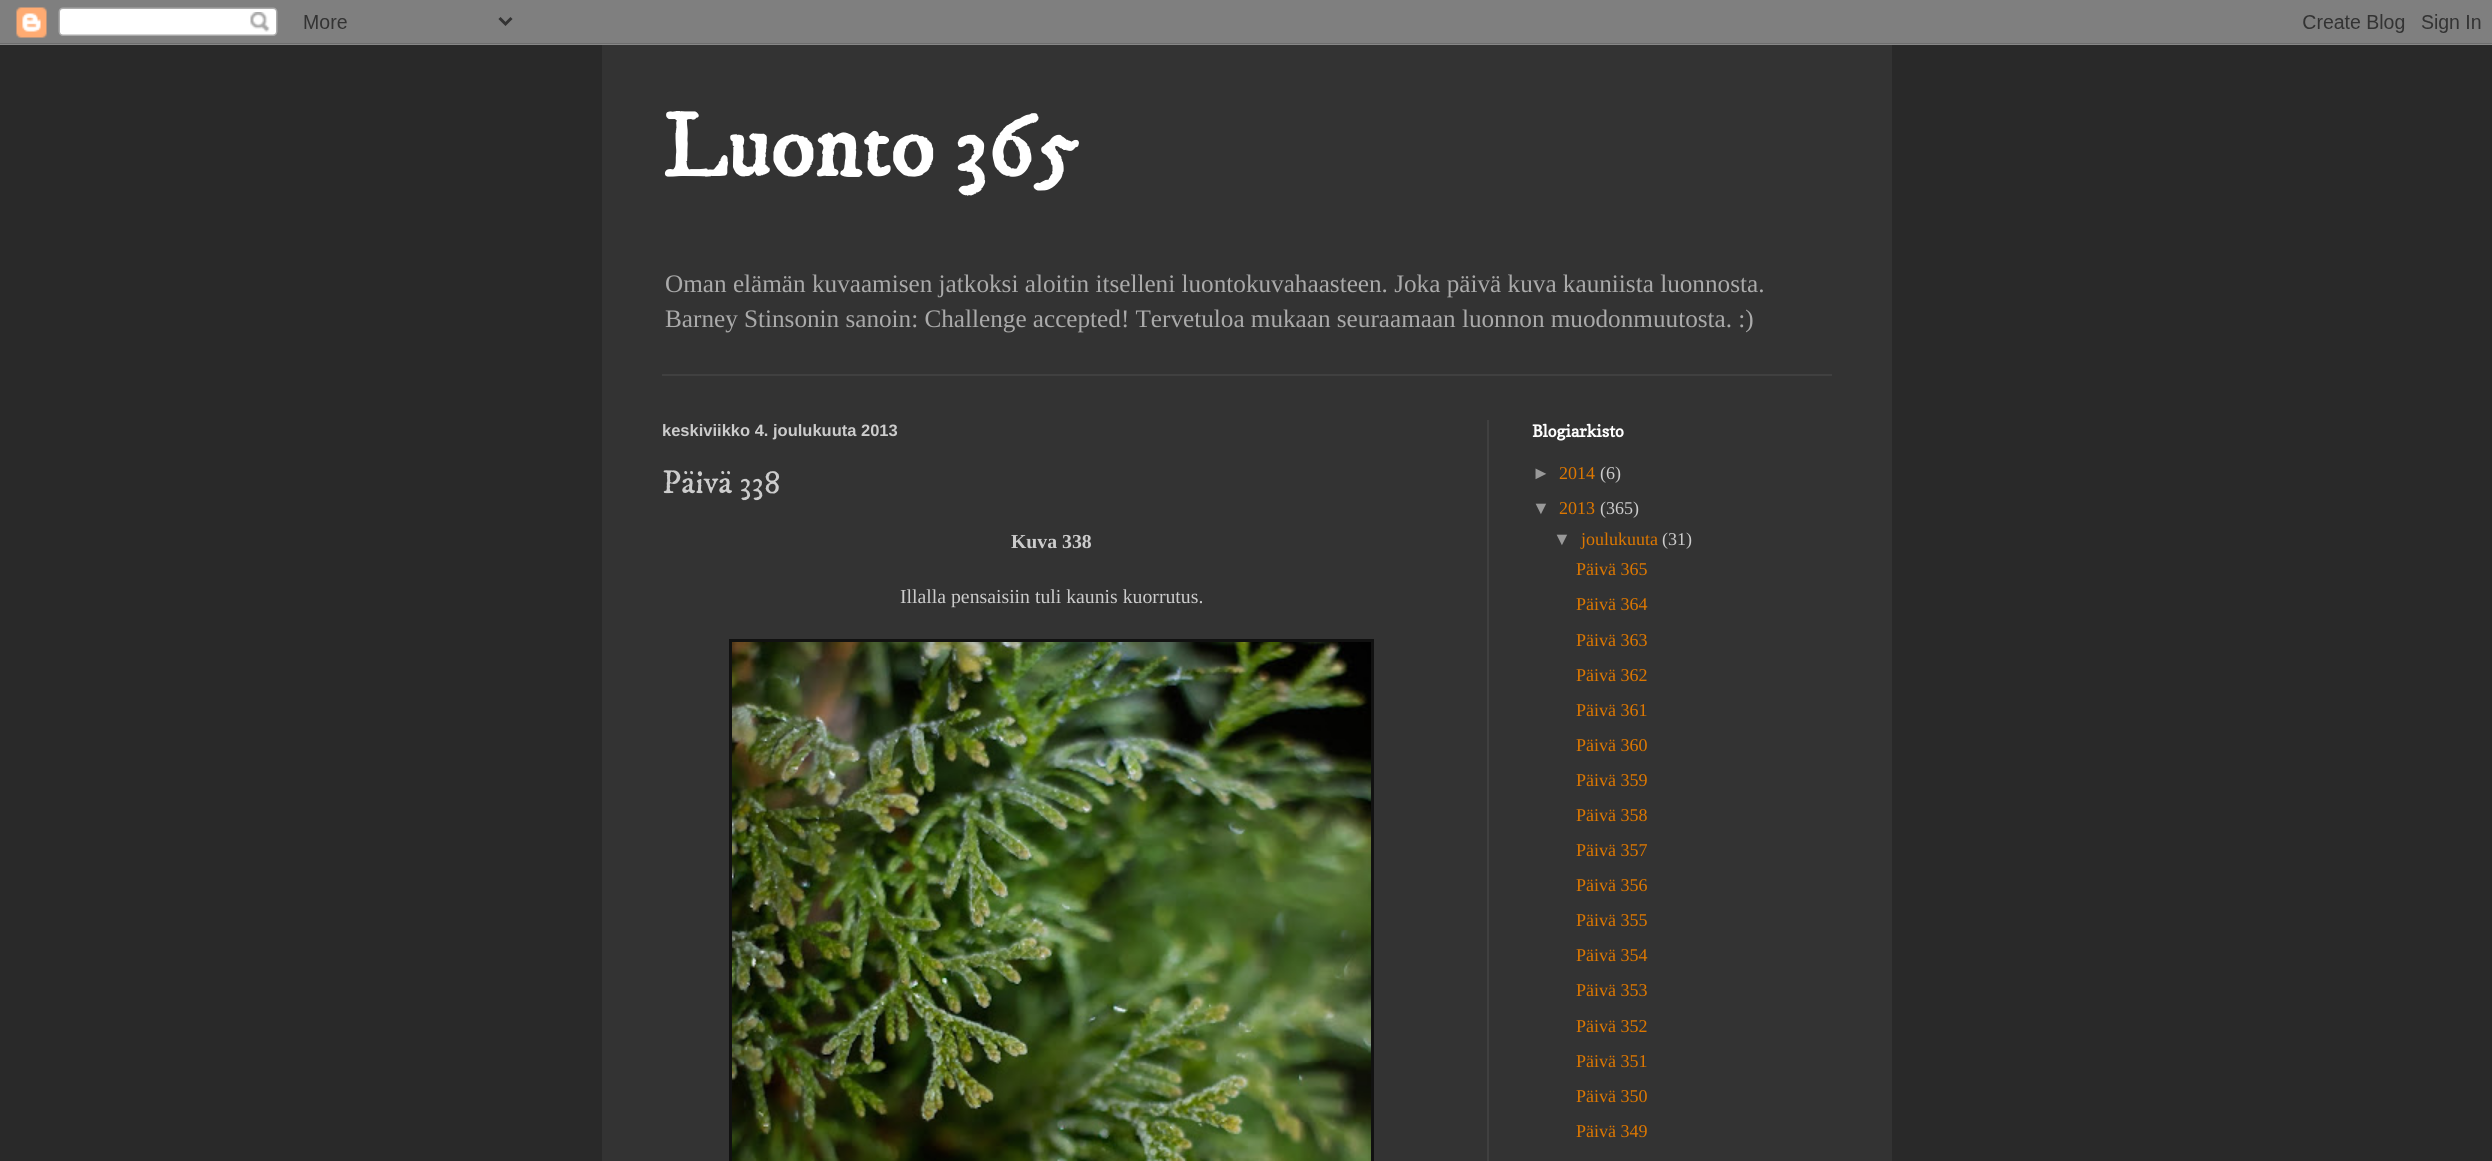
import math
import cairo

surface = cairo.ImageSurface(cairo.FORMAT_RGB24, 2492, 1161)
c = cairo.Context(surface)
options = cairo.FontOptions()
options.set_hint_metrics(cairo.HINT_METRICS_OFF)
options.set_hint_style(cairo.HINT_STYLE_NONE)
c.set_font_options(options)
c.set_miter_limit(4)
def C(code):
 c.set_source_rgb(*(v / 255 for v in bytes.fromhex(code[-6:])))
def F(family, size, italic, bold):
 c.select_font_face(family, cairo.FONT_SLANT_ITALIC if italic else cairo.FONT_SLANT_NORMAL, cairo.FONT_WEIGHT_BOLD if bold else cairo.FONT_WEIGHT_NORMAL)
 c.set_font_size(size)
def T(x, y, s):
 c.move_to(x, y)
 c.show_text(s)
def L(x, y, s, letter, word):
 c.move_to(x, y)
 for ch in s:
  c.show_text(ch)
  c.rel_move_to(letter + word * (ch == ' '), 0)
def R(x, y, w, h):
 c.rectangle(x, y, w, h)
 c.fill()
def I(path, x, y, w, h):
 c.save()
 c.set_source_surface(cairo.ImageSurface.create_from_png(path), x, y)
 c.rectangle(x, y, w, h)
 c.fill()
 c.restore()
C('292929')
c.paint()
I('1.png',0,0,2492,45)
C('333333')
R(602,45,1290,1116)
F('IM FELL DW Pica',90,0,1)
C('ffffff')
T(662,176,'Luonto 365')
F('Liberation Serif',25.2,0,0)
C('aaaaaa')
T(665,292,'Oman elämän kuvaamisen jatkoksi aloitin itselleni luontokuvahaasteen. Joka päivä kuva kauniista luonnosta.')
L(665,327,'Barney Stinsonin sanoin: Challenge accepted! Tervetuloa mukaan seuraamaan luonnon muodonmuutosta. :)',0,-.1)
C('404040')
R(662,374,1170,2)
R(1487,420,2,741)
F('Liberation Sans',16.5,0,1)
C('cccccc')
T(662,436,'keskiviikko 4. joulukuuta 2013')
F('IM FELL DW Pica',33,0,0)
T(662,493,'Päivä 338')
F('Liberation Serif',19.75,0,1)
T(1011,548,'Kuva 338')
F('Liberation Serif',19.75,0,0)
T(900,603,'Illalla pensaisiin tuli kaunis kuorrutus.')
C('111111')
R(729,639,645,522)
I('2.png',732,642,639,519)
F('Copse',16.5,0,1)
C('ffffff')
T(1532,437,'Blogiarkisto')
F('Liberation Sans',18,0,0)
C('999999')
T(1532,479,'►')
F('Liberation Serif',18,0,0)
C('dd7700')
T(1559,479,'2014')
C('cccccc')
T(1600,479,'(6)')
F('Liberation Sans',18,0,0)
C('999999')
T(1532,514,'▼')
F('Liberation Serif',18,0,0)
C('dd7700')
T(1559,514,'2013')
C('cccccc')
T(1600,514,'(365)')
F('Liberation Sans',18,0,0)
C('999999')
T(1553,545,'▼')
F('Liberation Serif',18,0,0)
C('dd7700')
T(1581,545,'joulukuuta')
C('cccccc')
T(1662,545,'(31)')
C('dd7700')
T(1576,575,'Päivä 365')
T(1576,610,'Päivä 364')
T(1576,646,'Päivä 363')
T(1576,681,'Päivä 362')
T(1576,716,'Päivä 361')
T(1576,751,'Päivä 360')
T(1576,786,'Päivä 359')
T(1576,821,'Päivä 358')
T(1576,856,'Päivä 357')
T(1576,891,'Päivä 356')
T(1576,926,'Päivä 355')
T(1576,961,'Päivä 354')
T(1576,996,'Päivä 353')
T(1576,1032,'Päivä 352')
T(1576,1067,'Päivä 351')
T(1576,1102,'Päivä 350')
T(1576,1137,'Päivä 349')
surface.write_to_png('o.png')
